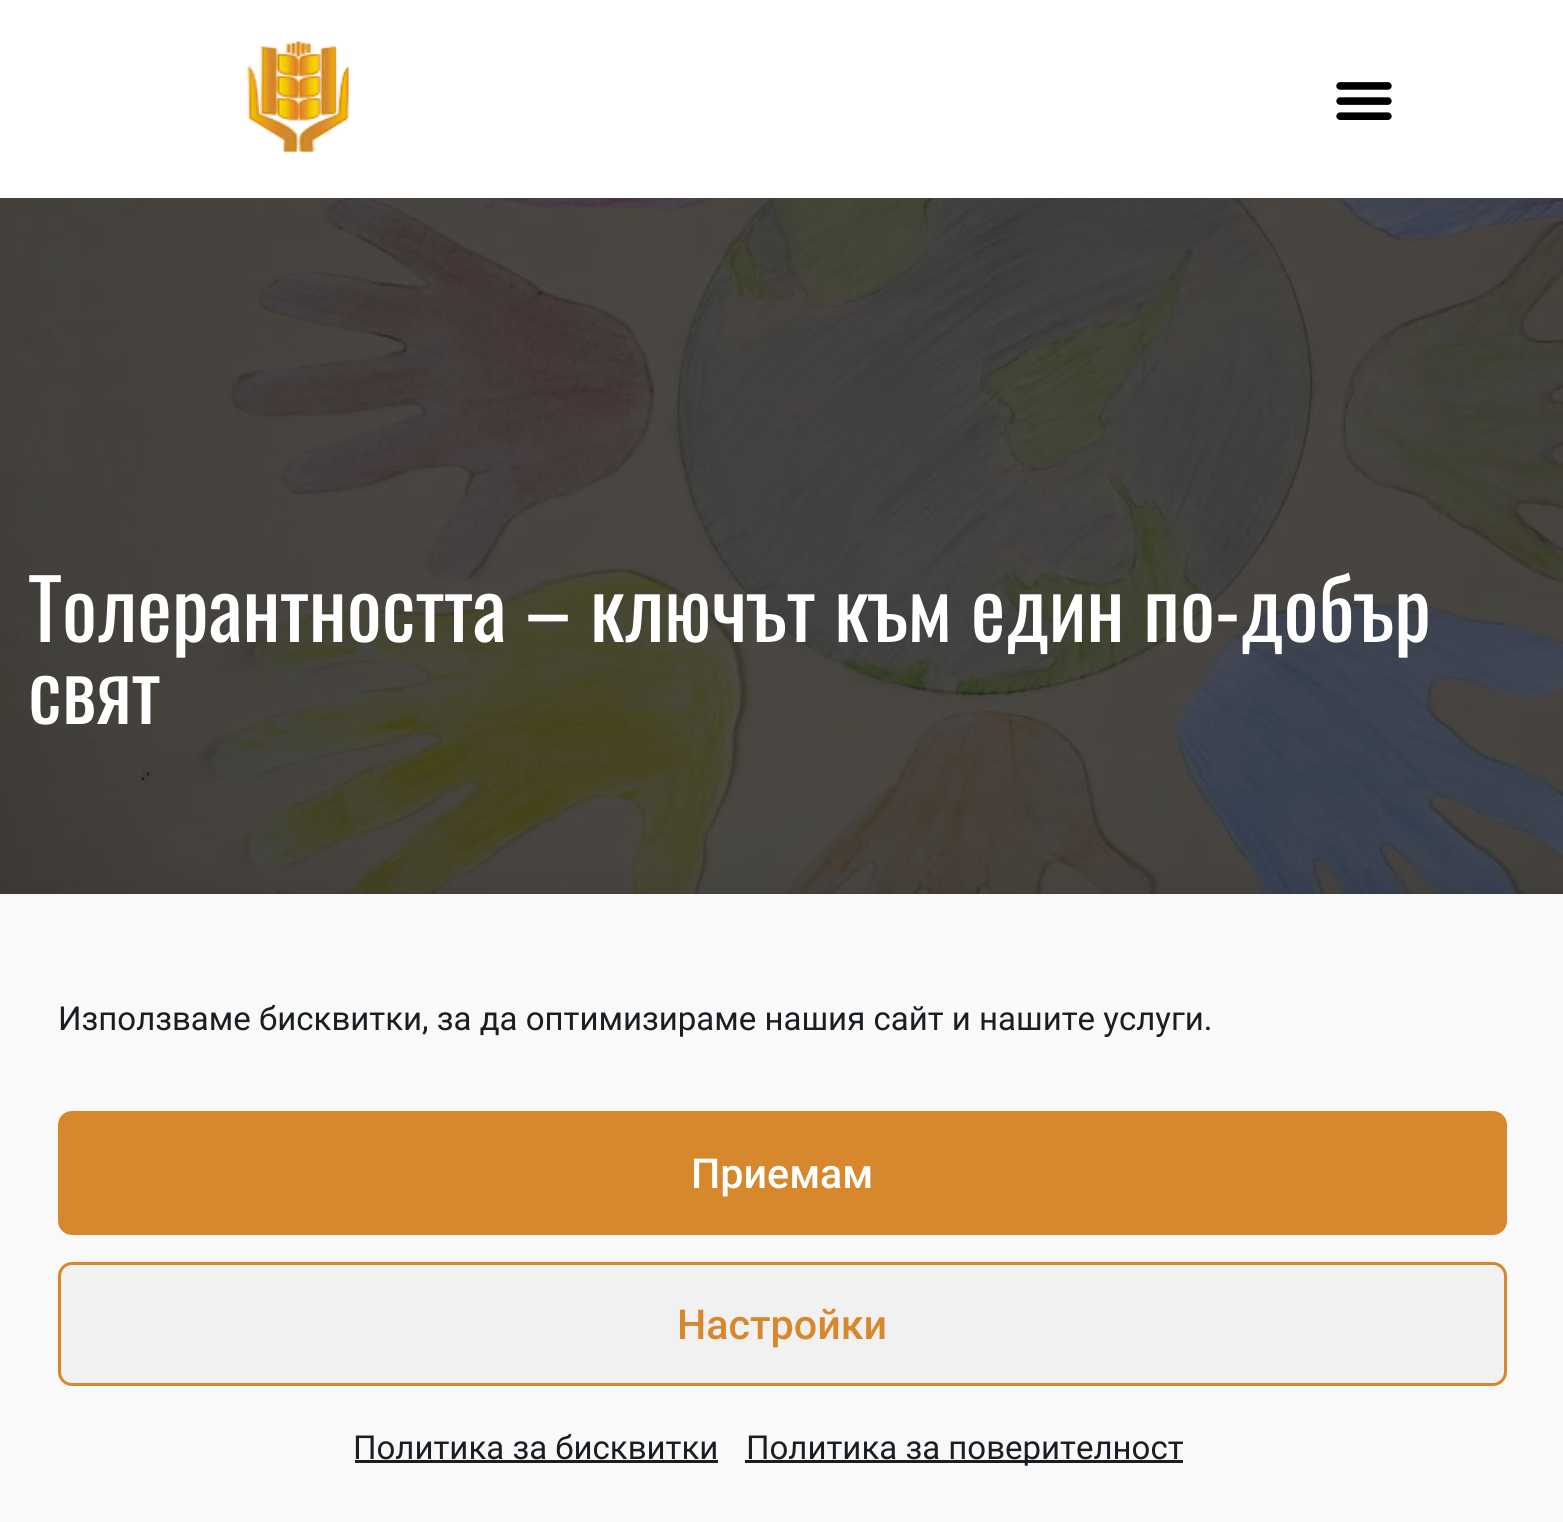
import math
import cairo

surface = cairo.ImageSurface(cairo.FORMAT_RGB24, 1563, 1522)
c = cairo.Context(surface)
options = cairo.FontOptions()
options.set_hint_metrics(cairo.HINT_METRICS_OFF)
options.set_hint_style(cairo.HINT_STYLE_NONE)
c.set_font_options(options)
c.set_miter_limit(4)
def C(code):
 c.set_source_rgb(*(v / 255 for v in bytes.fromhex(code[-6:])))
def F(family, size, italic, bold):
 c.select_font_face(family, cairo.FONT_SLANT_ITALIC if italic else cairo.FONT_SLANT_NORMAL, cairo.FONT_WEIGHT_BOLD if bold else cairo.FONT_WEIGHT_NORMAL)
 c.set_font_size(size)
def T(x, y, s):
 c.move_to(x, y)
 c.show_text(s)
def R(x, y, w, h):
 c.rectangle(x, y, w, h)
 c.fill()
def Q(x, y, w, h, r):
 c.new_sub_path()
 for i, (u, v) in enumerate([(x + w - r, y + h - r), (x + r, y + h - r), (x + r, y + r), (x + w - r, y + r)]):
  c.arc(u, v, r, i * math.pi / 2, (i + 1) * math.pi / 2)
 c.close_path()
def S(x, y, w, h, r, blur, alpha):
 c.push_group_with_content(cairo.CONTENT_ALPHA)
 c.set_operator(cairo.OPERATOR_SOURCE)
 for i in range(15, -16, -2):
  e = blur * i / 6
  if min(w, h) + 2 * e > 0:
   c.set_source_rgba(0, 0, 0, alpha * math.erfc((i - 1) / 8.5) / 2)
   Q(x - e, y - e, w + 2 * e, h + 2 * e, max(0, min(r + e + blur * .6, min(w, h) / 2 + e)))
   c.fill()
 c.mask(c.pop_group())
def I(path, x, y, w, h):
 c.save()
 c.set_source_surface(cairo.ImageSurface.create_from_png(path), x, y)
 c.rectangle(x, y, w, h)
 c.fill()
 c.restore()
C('ffffff')
c.paint()
I('1.png',246,41,105,111)
I('2.png',1336,82,56,38)
I('3.png',0,198,1563,696)
F('Oswald',82.5,0,0)
C('ffffff')
T(28,642,'Толерантността')
F('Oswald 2',82.5,0,0)
T(525,642,'–')
F('Oswald',82.5,0,0)
T(590,642,'ключът към един по')
F('Oswald 2',82.5,0,0)
T(1215,642,'-')
F('Oswald',82.5,0,0)
T(1240,642,'добър')
T(28,724,'свят')
C('000000')
S(0,921,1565,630,0,27.5,.19)
C('f9f9f9')
R(0,896,1563,626)
F('Roboto',33,0,0)
C('191e23')
T(58,1030,'Използваме бисквитки, за да оптимизираме нашия сайт и нашите услуги.')
C('d7882d')
Q(59.5,1112.5,1446,121,12.5)
c.fill_preserve()
c.set_line_width(3)
c.stroke()
F('Roboto Medium',41.25,0,0)
C('ffffff')
T(691,1188,'Приемам')
C('f1f1f1')
Q(59.5,1263.5,1446,121,12.5)
c.fill_preserve()
C('d7882d')
c.stroke()
T(677,1339,'Настройки')
F('Roboto',33,0,0)
C('191e23')
T(353,1459,'Политика за бисквитки')
R(355,1460,363,3)
R(745,1460,438,3)
T(746,1459,'Политика за поверителност')
surface.write_to_png('o.png')
